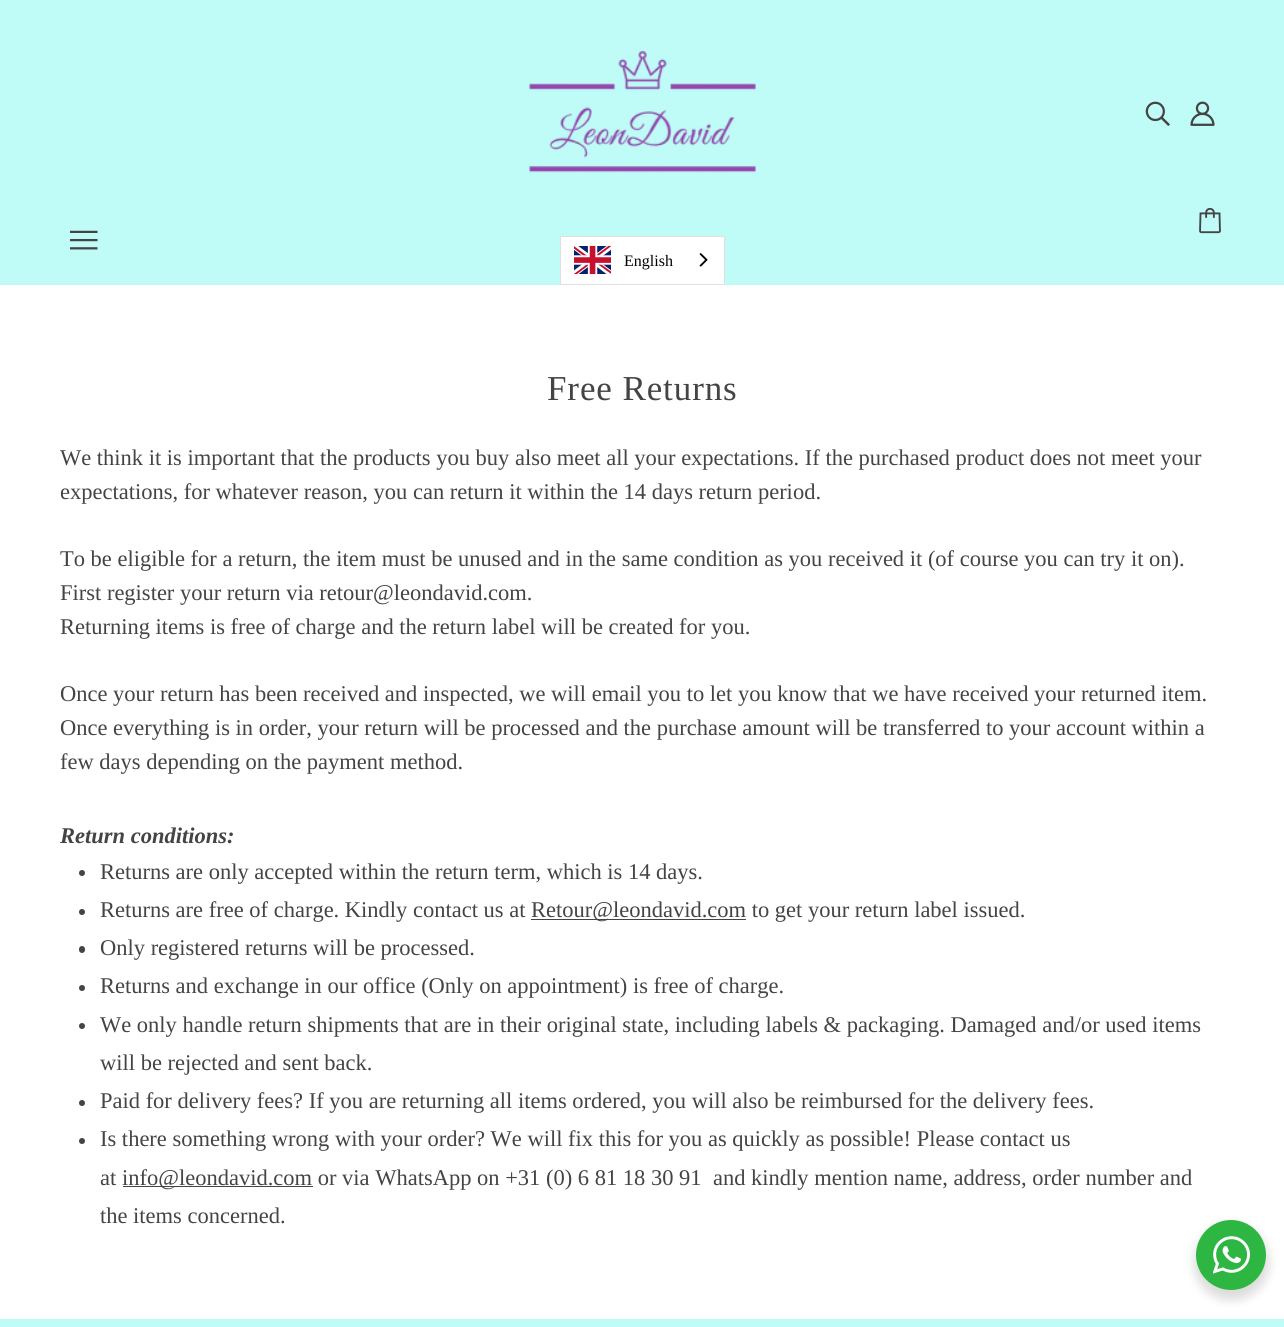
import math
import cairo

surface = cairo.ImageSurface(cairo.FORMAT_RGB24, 1284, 1327)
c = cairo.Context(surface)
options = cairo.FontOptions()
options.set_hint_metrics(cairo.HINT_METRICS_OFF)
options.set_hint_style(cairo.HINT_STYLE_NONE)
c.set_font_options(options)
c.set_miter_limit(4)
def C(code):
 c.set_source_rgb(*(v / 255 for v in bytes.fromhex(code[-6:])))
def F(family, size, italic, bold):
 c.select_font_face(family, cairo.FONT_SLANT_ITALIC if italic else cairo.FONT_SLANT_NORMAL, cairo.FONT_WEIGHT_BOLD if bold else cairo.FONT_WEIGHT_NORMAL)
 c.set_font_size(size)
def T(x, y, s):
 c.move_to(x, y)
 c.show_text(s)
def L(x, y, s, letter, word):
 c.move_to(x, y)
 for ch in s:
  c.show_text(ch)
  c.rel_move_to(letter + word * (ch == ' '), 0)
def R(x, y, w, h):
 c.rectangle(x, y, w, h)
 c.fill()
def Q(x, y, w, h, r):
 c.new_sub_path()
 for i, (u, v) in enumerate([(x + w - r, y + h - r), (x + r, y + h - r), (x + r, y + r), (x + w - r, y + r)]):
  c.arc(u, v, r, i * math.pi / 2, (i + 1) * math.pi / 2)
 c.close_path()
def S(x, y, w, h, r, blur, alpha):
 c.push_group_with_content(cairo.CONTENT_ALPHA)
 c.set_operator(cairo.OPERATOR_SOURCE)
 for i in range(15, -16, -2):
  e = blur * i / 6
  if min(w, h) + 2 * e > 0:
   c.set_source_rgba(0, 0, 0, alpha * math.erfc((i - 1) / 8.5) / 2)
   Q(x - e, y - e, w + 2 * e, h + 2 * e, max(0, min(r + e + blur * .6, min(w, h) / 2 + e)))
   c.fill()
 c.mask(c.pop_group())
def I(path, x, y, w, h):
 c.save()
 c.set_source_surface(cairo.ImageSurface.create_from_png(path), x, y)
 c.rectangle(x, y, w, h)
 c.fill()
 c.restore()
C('ffffff')
c.paint()
C('bffcf7')
R(0,0,1284,285)
I('1.png',529,50,227,123)
I('2.png',1145,101,25,25)
I('3.png',1190,101,25,25)
I('4.png',1199,208,22,26)
I('5.png',70,230,28,20)
C('ffffff')
c.rectangle(560.5,236.5,164,48)
c.fill_preserve()
C('e0e0e0')
c.set_line_width(1)
c.stroke()
I('6.png',574,245,37,30)
F('Liberation Serif',16,0,0)
C('000000')
T(624,266,'English')
I('7.png',699,253,9,14)
F('Liberation Serif',35,0,0)
C('444444')
L(547,400,'Free Returns',.9,0)
F('Liberation Serif',22.5,0,0)
T(60,465,'We think it is important that the products you buy also meet all your expectations. If the purchased product does not meet your')
T(60,499,'expectations, for whatever reason, you can return it within the 14 days return period.')
T(60,566,'To be eligible for a return, the item must be unused and in the same condition as you received it (of course you can try it on).')
T(60,600,'First register your return via retour@leondavid.com.')
T(60,634,'Returning items is free of charge and the return label will be created for you.')
T(60,701,'Once your return has been received and inspected, we will email you to let you know that we have received your returned item.')
T(60,735,'Once everything is in order, your return will be processed and the purchase amount will be transferred to your account within a')
T(60,769,'few days depending on the payment method.')
F('Liberation Serif',22.5,1,1)
T(60,843,'Return conditions:')
c.new_path()
c.arc(82,873,3,0,2 * math.pi)
c.fill()
F('Liberation Serif',22.5,0,0)
T(100,879,'Returns are only accepted within the return term, which is 14 days.')
c.new_path()
c.arc(82,912,3,0,2 * math.pi)
c.fill()
T(100,917,'Returns are free of charge. Kindly contact us at')
R(531,919,215,1)
T(531,917,'Retour@leondavid.com to get your return label issued.')
Q(79,946,6,7,3)
c.fill()
T(100,955,'Only registered returns will be processed.')
c.new_path()
c.arc(82,988,3,0,2 * math.pi)
c.fill()
T(100,993,'Returns and exchange in our office (Only on appointment) is free of charge.')
c.new_path()
c.arc(82,1026,3,0,2 * math.pi)
c.fill()
T(100,1032,'We only handle return shipments that are in their original state, including labels & packaging. Damaged and/or used items')
T(100,1070,'will be rejected and sent back.')
c.new_path()
c.arc(82,1103,3,0,2 * math.pi)
c.fill()
T(100,1108,'Paid for delivery fees? If you are returning all items ordered, you will also be reimbursed for the delivery fees.')
c.new_path()
c.arc(82,1141,3,0,2 * math.pi)
c.fill()
T(100,1146,'Is there something wrong with your order? We will fix this for you as quickly as possible! Please contact us')
T(100,1185,'at')
R(123,1186,190,1)
T(122,1185,'info@leondavid.com or via WhatsApp on +31 (0) 6 81 18 30 91')
T(713,1185,'and kindly mention name, address, order number and')
T(100,1223,'the items concerned.')
C('bffcf7')
R(0,1319,1284,8)
C('000000')
S(1194,1225,75,75,37.5,5,.14)
C('2db742')
c.arc(1231,1255,35,0,2 * math.pi)
c.fill()
I('8.png',1213,1236,37,38)
surface.write_to_png('o.png')
